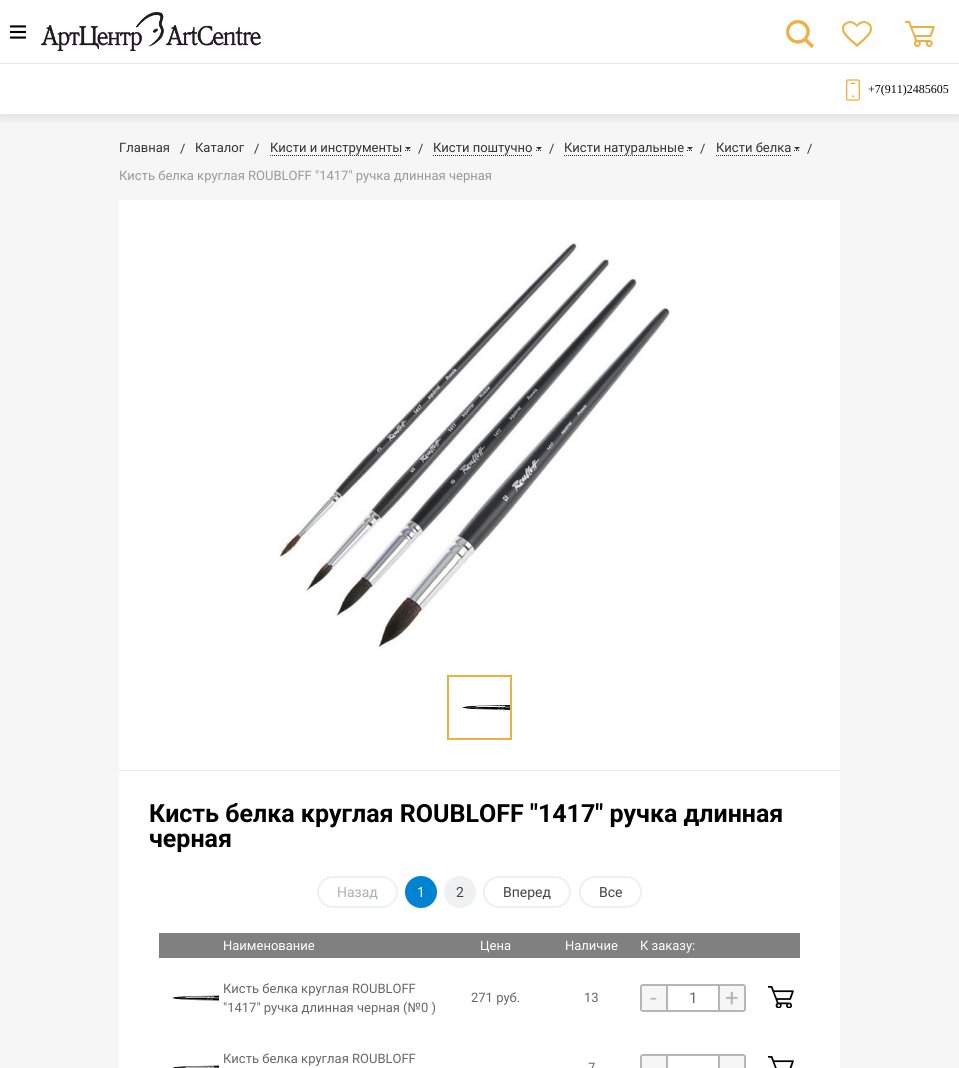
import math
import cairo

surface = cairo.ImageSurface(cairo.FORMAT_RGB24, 959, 1068)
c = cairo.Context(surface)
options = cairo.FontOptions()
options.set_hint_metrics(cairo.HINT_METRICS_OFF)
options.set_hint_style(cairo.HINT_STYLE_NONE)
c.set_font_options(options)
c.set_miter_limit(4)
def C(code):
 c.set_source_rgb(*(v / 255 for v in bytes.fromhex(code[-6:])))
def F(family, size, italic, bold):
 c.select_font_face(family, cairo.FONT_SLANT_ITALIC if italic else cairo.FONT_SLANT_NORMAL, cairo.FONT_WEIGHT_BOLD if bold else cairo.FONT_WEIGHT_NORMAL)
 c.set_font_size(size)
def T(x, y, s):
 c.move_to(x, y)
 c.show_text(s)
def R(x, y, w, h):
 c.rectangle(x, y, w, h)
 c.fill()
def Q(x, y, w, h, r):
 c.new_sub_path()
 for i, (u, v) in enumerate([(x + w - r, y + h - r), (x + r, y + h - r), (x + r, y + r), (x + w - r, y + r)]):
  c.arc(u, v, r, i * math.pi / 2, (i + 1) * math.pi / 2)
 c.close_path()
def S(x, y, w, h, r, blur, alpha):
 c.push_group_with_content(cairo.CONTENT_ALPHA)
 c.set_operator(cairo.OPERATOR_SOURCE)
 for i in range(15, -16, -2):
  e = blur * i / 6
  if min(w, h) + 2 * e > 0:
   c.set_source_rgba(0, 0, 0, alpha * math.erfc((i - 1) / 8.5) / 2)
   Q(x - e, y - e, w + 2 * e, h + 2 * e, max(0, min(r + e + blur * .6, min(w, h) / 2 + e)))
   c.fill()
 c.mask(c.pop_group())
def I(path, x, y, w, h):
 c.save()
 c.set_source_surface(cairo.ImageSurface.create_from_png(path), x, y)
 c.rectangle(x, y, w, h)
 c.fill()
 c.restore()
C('ffffff')
c.paint()
C('f6f6f6')
R(0,114,959,954)
c.save()
c.rectangle(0,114,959,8)
c.clip()
C('050505')
S(0,0,959,114,0,7.5,.15)
c.restore()
I('1.png',10,25,16,14)
I('2.png',41,12,220,39)
I('3.png',786,20,28,29)
I('4.png',842,21,30,26)
I('5.png',905,21,30,26)
C('e9e9e9')
R(0,63,959,1)
I('6.png',846,79,14,22)
F('Liberation Serif',12,0,0)
C('000000')
T(868,93,'+7(911)2485605')
F('Roboto',13,0,0)
C('333333')
T(119,152,'Главная')
T(180,153,'/')
T(195,152,'Каталог')
T(254,153,'/')
c.new_path()
c.move_to(270,155.5)
c.line_to(402,155.5)
c.set_line_width(1)
c.set_dash([1,1])
c.stroke()
c.new_path()
c.move_to(405,150.5)
c.line_to(406,150.5)
c.move_to(407,150.5)
c.line_to(408,150.5)
c.move_to(409,150.5)
c.line_to(410,150.5)
c.set_dash([])
c.stroke()
T(270,152,'Кисти и инструменты')
c.new_path()
c.move_to(405,147)
c.line_to(411,147)
c.line_to(408,150)
c.close_path()
c.fill()
T(418,153,'/')
c.new_path()
c.move_to(433,155.5)
c.line_to(533,155.5)
c.set_dash([1,1])
c.stroke()
c.new_path()
c.move_to(536,150.5)
c.line_to(537,150.5)
c.move_to(538,150.5)
c.line_to(539,150.5)
c.move_to(540,150.5)
c.line_to(541,150.5)
c.set_dash([])
c.stroke()
T(433,152,'Кисти поштучно')
c.new_path()
c.move_to(536,147)
c.line_to(542,147)
c.line_to(539,150)
c.close_path()
c.fill()
T(549,153,'/')
c.new_path()
c.move_to(564,155.5)
c.line_to(684,155.5)
c.set_dash([1,1])
c.stroke()
c.new_path()
c.move_to(687,150.5)
c.line_to(688,150.5)
c.move_to(689,150.5)
c.line_to(690,150.5)
c.move_to(691,150.5)
c.line_to(692,150.5)
c.set_dash([])
c.stroke()
T(564,152,'Кисти натуральные')
c.new_path()
c.move_to(687,147)
c.line_to(693,147)
c.line_to(690,150)
c.close_path()
c.fill()
T(700,153,'/')
c.new_path()
c.move_to(716,155.5)
c.line_to(791,155.5)
c.set_dash([1,1])
c.stroke()
c.new_path()
c.move_to(794,150.5)
c.line_to(795,150.5)
c.move_to(796,150.5)
c.line_to(797,150.5)
c.move_to(798,150.5)
c.line_to(799,150.5)
c.set_dash([])
c.stroke()
T(716,152,'Кисти белка')
c.new_path()
c.move_to(794,147)
c.line_to(800,147)
c.line_to(797,150)
c.close_path()
c.fill()
T(807,153,'/')
C('999999')
T(119,180,'Кисть белка круглая ROUBLOFF "1417" ручка длинная черная')
C('ffffff')
R(119,200,721,868)
C('e9e9e9')
R(119,770,721,1)
I('7.png',278,241,394,408)
c.rectangle(448,676,63,63)
C('eeb043')
c.set_line_width(2)
c.stroke()
I('8.png',459,704,51,9)
F('Roboto',25,0,1)
C('000000')
T(149,822,'Кисть белка круглая ROUBLOFF "1417" ручка длинная')
T(149,847,'черная')
Q(318,877,79,30,15)
C('eff0f1')
c.stroke()
F('Roboto',14,0,0)
C('aab1b4')
T(337,897,'Назад')
C('0083d1')
c.new_path()
c.arc(421,892,16,0,2 * math.pi)
c.fill()
C('ffffff')
T(417,897,'1')
C('eff0f1')
c.new_path()
c.arc(460,892,16,0,2 * math.pi)
c.fill()
C('444444')
T(456,897,'2')
Q(484,877,86,30,15)
C('eff0f1')
c.stroke()
C('444444')
T(503,897,'Вперед')
Q(580,877,61,30,15)
C('eff0f1')
c.stroke()
C('444444')
T(599,897,'Все')
C('808080')
R(159,933,641,25)
F('Roboto',13,0,0)
C('ffffff')
T(223,950,'Наименование')
T(480,950,'Цена')
T(565,950,'Наличие')
T(640,950,'К заказу:')
I('9.png',172,993,47,13)
C('666666')
T(223,993,'Кисть белка круглая ROUBLOFF')
T(223,1012,'"1417" ручка длинная черная (№0 )')
T(471,1002,'271 руб.')
T(584,1002,'13')
Q(641,985,104,26,2)
C('b6b6b6')
c.stroke()
C('f6f6f6')
R(642,986,24,24)
F('Roboto',24,0,0)
C('b6b6b6')
T(650,1006,'-')
R(718,986,2,24)
R(666,986,2,24)
F('Roboto',15,0,0)
C('666666')
T(689,1003,'1')
C('f6f6f6')
R(720,986,24,24)
F('Roboto',24,0,0)
C('b6b6b6')
T(725,1006,'+')
I('10.png',768,986,26,22)
I('11.png',172,1063,47,5)
F('Roboto',13,0,0)
C('666666')
T(223,1063,'Кисть белка круглая ROUBLOFF')
T(588,1072,'7')
Q(641,1055,104,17,2)
C('b6b6b6')
c.stroke()
C('f6f6f6')
R(642,1056,24,12)
C('b6b6b6')
R(718,1056,2,12)
R(666,1056,2,12)
C('f6f6f6')
R(720,1056,24,12)
I('12.png',768,1056,26,12)
surface.write_to_png('o.png')
